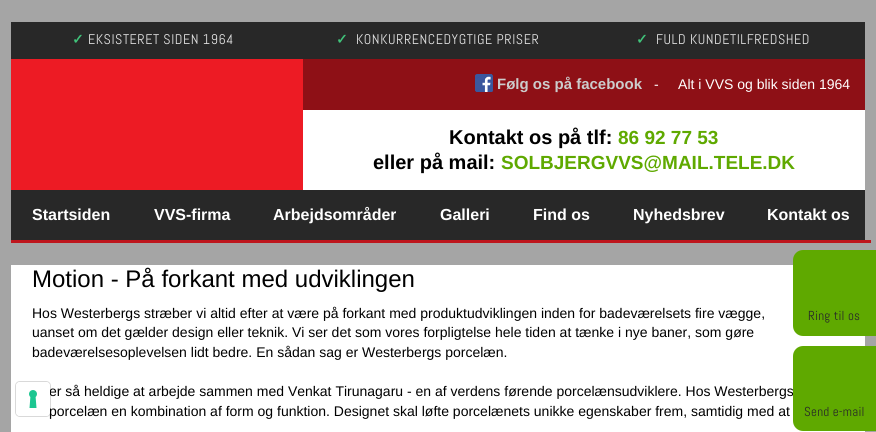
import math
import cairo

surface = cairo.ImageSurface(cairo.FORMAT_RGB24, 876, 432)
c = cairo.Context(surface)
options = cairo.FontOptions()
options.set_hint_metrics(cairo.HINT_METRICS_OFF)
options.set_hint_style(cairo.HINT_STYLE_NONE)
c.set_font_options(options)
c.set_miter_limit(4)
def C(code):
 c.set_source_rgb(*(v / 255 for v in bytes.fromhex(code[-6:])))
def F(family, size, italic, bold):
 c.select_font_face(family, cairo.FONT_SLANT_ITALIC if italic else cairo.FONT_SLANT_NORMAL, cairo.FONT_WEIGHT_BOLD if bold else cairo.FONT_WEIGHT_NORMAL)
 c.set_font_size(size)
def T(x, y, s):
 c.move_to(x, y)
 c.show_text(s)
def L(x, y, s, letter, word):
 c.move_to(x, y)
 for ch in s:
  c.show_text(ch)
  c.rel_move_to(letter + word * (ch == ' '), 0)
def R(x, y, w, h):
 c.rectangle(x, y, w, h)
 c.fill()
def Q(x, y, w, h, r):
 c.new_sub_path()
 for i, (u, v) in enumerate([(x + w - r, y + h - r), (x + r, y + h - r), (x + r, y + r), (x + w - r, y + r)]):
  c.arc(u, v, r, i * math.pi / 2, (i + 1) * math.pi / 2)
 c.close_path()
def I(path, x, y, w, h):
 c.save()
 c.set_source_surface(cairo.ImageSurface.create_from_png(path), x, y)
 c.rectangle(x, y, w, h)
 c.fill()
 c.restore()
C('a5a5a5')
c.paint()
C('282828')
R(11,22,854,37)
F('DejaVu Sans',14,0,1)
C('40c37a')
L(72,44,'✓',.55,0)
F('Abel',14,0,0)
C('e1e1e1')
L(88,44,'EKSISTERET SIDEN 1964',.55,0)
F('DejaVu Sans',14,0,1)
C('40c37a')
L(336,44,'✓',.55,0)
F('Abel',14,0,0)
C('e1e1e1')
L(356,44,'KONKURRENCEDYGTIGE PRISER',.55,0)
F('DejaVu Sans',14,0,1)
C('40c37a')
L(636,44,'✓',.55,0)
F('Abel',14,0,0)
C('e1e1e1')
L(656,44,'FULD KUNDETILFREDSHED',.55,0)
C('ed1b24')
R(11,59,292,131)
C('8e1016')
R(303,59,562,51)
I('1.png',475,74,18,18)
F('Liberation Sans',15,0,1)
C('cccccc')
T(497,89,'Følg os på facebook')
F('Liberation Sans',14,0,0)
C('ffffff')
T(654,89,'-     Alt i VVS og blik siden 1964')
R(303,110,562,80)
F('Liberation Sans',20,0,1)
C('000000')
T(449,144,'Kontakt os på tlf:')
F('Liberation Sans',19,0,1)
C('5fa900')
T(618,144,'86 92 77 53')
F('Liberation Sans',20,0,1)
C('000000')
T(373,169,'eller på mail:')
F('Liberation Sans',19,0,1)
C('5fa900')
T(501,169,'SOLBJERGVVS@MAIL.TELE.DK')
C('282828')
R(11,190,854,50)
C('be161d')
R(11,240,860,3)
F('Liberation Sans',16,0,1)
C('ffffff')
T(32,220,'Startsiden')
T(154,220,'VVS-firma')
T(273,220,'Arbejdsområder')
T(440,220,'Galleri')
T(533,220,'Find os')
T(633,220,'Nyhedsbrev')
T(767,220,'Kontakt os')
R(11,265,854,167)
F('Liberation Sans',24,0,0)
C('000000')
T(32,287,'Motion - På forkant med udviklingen')
F('Liberation Sans',14,0,0)
T(32,318,'Hos Westerbergs stræber vi altid efter at være på forkant med produktudviklingen inden for badeværelsets fire vægge,')
T(32,337,'uanset om det gælder design eller teknik. Vi ser det som vores forpligtelse hele tiden at tænke i nye baner, som gøre')
T(32,357,'badeværelsesoplevelsen lidt bedre. En sådan sag er Westerbergs porcelæn.')
T(49,396,'er så heldige at arbejde sammen med Venkat Tirunagaru - en af verdens førende porcelænsudviklere. Hos Westerbergs')
T(49,416,'porcelæn en kombination af form og funktion. Designet skal løfte porcelænets unikke egenskaber frem, samtidig med at')
C('5fa900')
c.new_path()
c.move_to(803,250)
c.line_to(876,250)
c.line_to(876,336)
c.line_to(803,336)
c.curve_to(797.5,336,793,331.5,793,326)
c.line_to(793,260)
c.curve_to(793,254.5,797.5,250,803,250)
c.close_path()
c.fill()
F('Abel',13,0,0)
C('282828')
L(808,320,'Ring til os',.25,0)
C('5fa900')
c.new_path()
c.move_to(803,346)
c.line_to(876,346)
c.line_to(876,431)
c.line_to(803,431)
c.curve_to(797.5,431,793,426.5,793,421)
c.line_to(793,356)
c.curve_to(793,350.5,797.5,346,803,346)
c.close_path()
c.fill()
C('282828')
L(804,416,'Send e-mail',.25,0)
Q(15.5,381.5,35,35,4.5)
c.set_source_rgba(0,0,0,0.15)
c.set_line_width(1)
c.stroke()
C('ffffff')
Q(16,382,34,34,4)
c.fill()
I('2.png',29,390,8,18)
surface.write_to_png('o.png')
